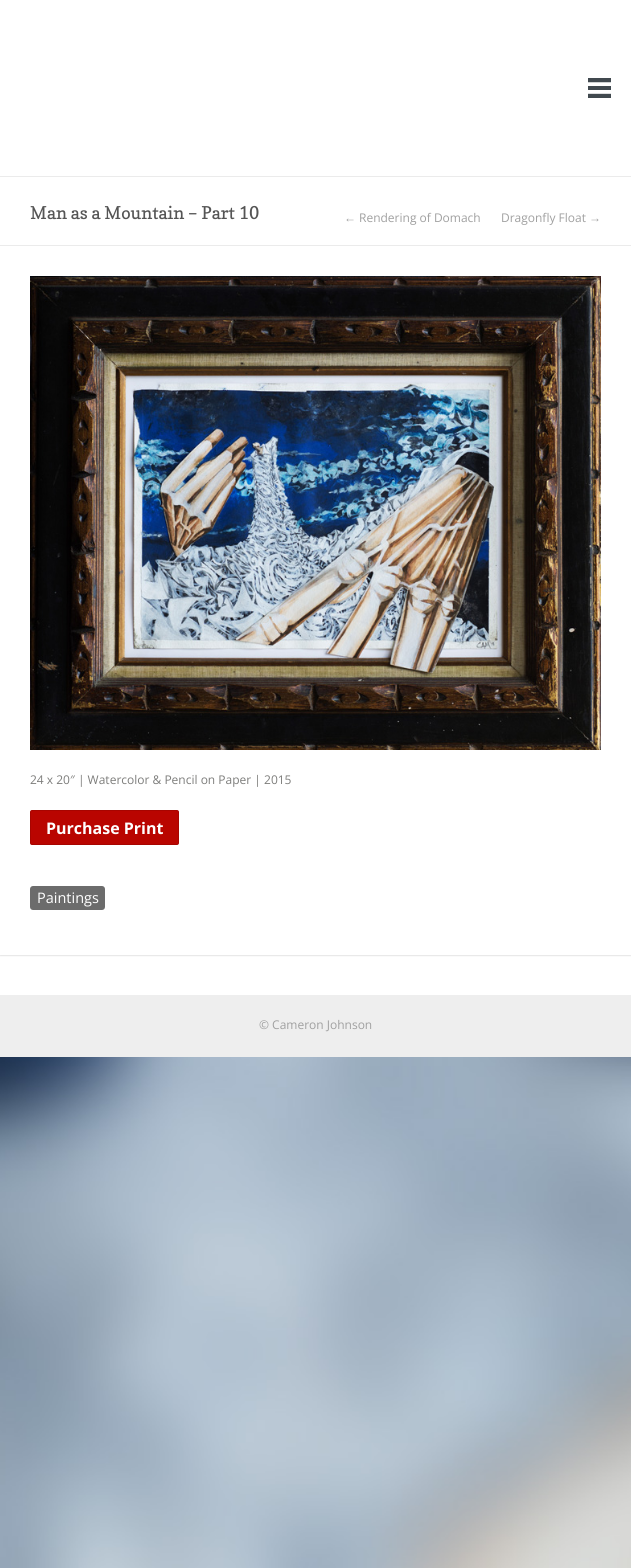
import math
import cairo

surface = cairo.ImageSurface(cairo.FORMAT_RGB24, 631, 1568)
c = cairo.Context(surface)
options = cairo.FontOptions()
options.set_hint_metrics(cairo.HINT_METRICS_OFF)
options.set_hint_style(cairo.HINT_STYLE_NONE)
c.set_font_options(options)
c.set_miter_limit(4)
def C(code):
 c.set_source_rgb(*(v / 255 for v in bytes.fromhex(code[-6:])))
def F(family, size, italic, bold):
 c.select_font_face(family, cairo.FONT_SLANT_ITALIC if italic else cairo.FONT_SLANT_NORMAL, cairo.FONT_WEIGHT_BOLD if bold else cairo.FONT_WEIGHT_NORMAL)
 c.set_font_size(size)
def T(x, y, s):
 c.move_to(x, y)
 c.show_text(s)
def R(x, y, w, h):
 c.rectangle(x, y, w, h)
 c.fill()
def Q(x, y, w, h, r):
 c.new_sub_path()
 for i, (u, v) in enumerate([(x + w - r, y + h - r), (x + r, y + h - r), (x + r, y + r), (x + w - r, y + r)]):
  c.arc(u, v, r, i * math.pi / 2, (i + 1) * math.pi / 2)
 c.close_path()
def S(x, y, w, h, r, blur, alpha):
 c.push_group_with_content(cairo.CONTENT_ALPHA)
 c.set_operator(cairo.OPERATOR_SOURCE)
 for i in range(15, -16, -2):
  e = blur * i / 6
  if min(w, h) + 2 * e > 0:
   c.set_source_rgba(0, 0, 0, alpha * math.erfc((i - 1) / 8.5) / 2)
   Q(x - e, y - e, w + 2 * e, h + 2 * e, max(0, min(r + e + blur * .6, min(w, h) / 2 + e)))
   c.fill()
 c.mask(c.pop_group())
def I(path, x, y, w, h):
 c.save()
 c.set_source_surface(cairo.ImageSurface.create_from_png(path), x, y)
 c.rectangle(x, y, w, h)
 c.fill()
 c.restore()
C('ffffff')
c.paint()
C('ebebeb')
R(0,176,631,1)
I('1.png',588,78,23,20)
R(0,245,631,1)
F('Copse',17.6,0,0)
C('555555')
T(30,219,'Man as a Mountain – Part 10')
F('Liberation Serif',12,0,0)
C('a0a0a0')
T(344,222,'←')
F('Open Sans',12,0,0)
T(359,222,'Rendering of Domach')
T(501,222,'Dragonfly Float')
F('Liberation Serif',12,0,0)
T(589,222,'→')
C('000000')
S(0,247,631,709,0,.5,.1)
C('ffffff')
R(0,246,631,709)
I('2.png',30,276,571,474)
F('Open Sans',12,0,0)
C('7d7d7b')
T(30,784,'24 x 20″ | Watercolor & Pencil on Paper | 2015')
C('b90500')
Q(30,810,149,35,2)
c.fill()
Q(30.5,810.5,148,34,1.5)
c.set_source_rgba(0,0,0,0.1)
c.set_line_width(1)
c.stroke()
F('Open Sans',16,0,1)
C('ffffff')
T(46,834,'Purchase Print')
C('6c6c6c')
Q(30,886,75,24,3)
c.fill()
F('Open Sans',14.5,0,0)
C('ffffff')
T(37,903,'Paintings')
C('eeeeee')
R(0,995,631,62)
F('Open Sans',12,0,0)
C('a0a0a0')
T(259,1029,'© Cameron Johnson')
I('3.png',0,1057,631,511)
surface.write_to_png('o.png')
